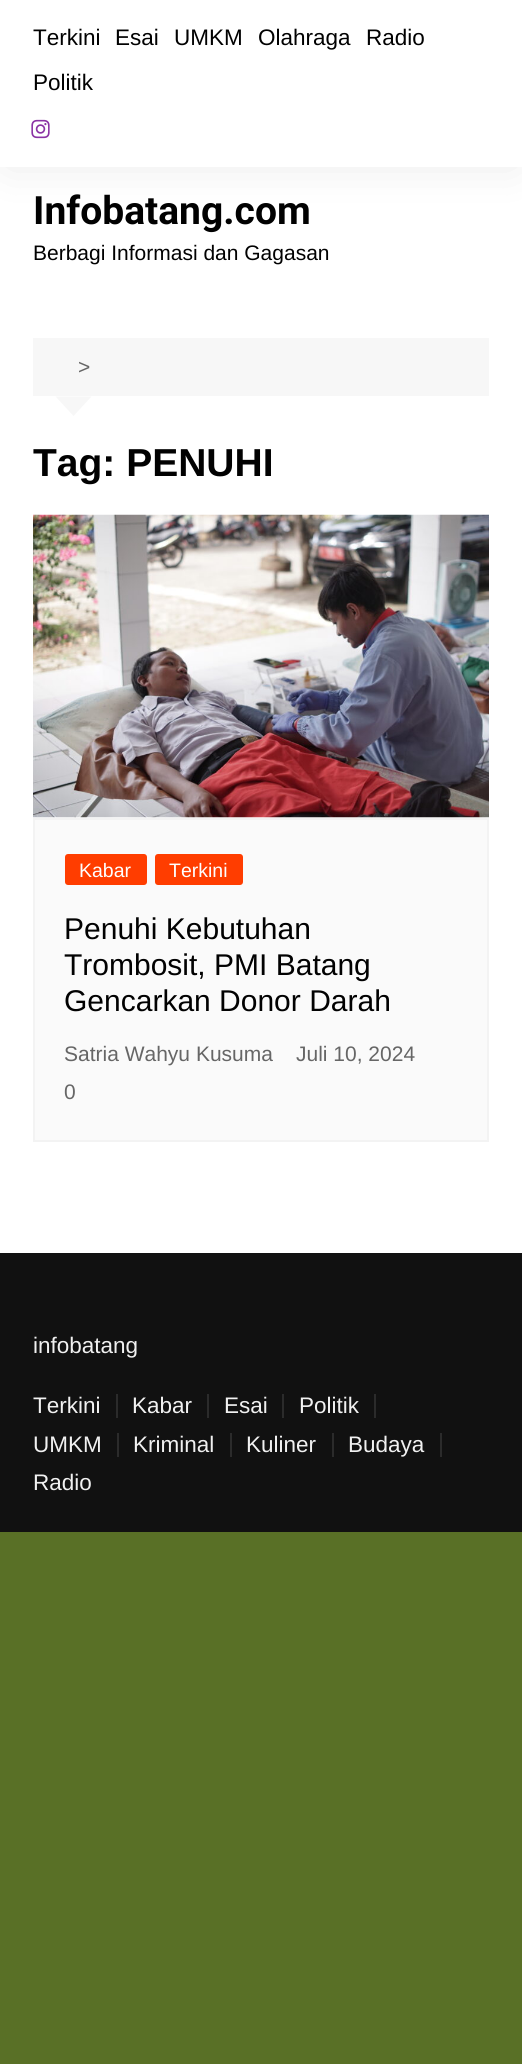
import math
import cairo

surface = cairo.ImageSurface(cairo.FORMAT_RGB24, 522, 2064)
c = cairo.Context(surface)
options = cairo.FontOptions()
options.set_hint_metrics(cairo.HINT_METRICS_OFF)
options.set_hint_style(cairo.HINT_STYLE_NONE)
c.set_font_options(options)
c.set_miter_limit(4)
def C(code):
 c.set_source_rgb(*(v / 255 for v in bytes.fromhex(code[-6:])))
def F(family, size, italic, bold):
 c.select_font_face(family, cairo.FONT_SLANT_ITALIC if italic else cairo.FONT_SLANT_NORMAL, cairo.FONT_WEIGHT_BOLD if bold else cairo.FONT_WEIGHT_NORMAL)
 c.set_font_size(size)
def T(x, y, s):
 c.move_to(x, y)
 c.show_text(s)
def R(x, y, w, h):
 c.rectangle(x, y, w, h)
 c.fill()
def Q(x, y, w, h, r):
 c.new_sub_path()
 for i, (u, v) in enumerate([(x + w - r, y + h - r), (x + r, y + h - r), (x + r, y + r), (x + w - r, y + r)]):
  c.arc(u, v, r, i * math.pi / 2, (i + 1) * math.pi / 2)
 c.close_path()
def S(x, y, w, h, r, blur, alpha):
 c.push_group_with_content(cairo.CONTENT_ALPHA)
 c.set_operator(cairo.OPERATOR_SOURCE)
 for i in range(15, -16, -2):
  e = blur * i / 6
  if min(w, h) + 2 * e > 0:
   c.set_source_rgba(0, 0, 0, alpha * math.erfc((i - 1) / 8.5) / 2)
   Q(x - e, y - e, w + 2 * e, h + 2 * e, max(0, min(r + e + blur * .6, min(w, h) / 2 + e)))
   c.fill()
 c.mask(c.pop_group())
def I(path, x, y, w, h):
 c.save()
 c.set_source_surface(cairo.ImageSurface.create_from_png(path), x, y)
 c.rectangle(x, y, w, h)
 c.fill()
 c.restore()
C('597026')
c.paint()
C('ffffff')
R(0,167,522,1086)
C('000000')
S(8,11,507,151,0,22.5,.1)
C('ffffff')
R(0,0,522,167)
F('Liberation Sans',22.5,0,0)
C('010101')
T(33,45,'Terkini')
T(115,45,'Esai')
T(174,45,'UMKM')
T(258,45,'Olahraga')
T(366,45,'Radio')
T(33,90,'Politik')
I('1.png',31,119,19,20)
F('Roboto',39,0,1)
T(33,224,'Infobatang.com')
F('Liberation Sans',21,0,0)
T(33,260,'Berbagi Informasi dan Gagasan')
C('f7f7f7')
R(33,338,456,58)
C('666666')
T(78,374,'>')
C('f7f7f7')
c.new_path()
c.move_to(55.5,396.5)
c.line_to(91.5,396.5)
c.line_to(73.5,416)
c.close_path()
c.fill()
F('Liberation Sans',39,0,1)
C('010101')
T(33,476,'Tag: PENUHI')
I('2.png',33,514,456,304)
C('fafafa')
c.rectangle(34,819,454,322)
c.fill_preserve()
C('f3f3f3')
c.stroke()
C('ff3d00')
Q(65,854,82,31,3)
c.fill()
F('Liberation Sans',19.5,0,0)
C('ffffff')
T(79,877,'Kabar')
C('ff3d00')
Q(155,854,88,31,3)
c.fill()
C('ffffff')
T(169,877,'Terkini')
F('Liberation Sans',30,0,0)
C('010101')
T(64,939,'Penuhi Kebutuhan')
T(64,975,'Trombosit, PMI Batang')
T(64,1011,'Gencarkan Donor Darah')
F('Liberation Sans',21,0,0)
C('666666')
T(64,1061,'Satria Wahyu Kusuma')
T(296,1061,'Juli 10, 2024')
T(64,1099,'0')
C('111111')
R(0,1253,522,279)
F('Liberation Sans',22.5,0,0)
C('f1f1f1')
T(33,1353,'infobatang')
C('2b2b2b')
R(116,1394,2,24)
C('f1f1f1')
T(33,1413,'Terkini')
C('2b2b2b')
R(207,1394,2,24)
C('f1f1f1')
T(132,1413,'Kabar')
C('2b2b2b')
R(282,1394,2,24)
C('f1f1f1')
T(224,1413,'Esai')
C('2b2b2b')
R(374,1394,2,24)
C('f1f1f1')
T(299,1413,'Politik')
C('2b2b2b')
R(117,1433,2,24)
C('f1f1f1')
T(33,1452,'UMKM')
C('2b2b2b')
R(230,1433,2,24)
C('f1f1f1')
T(133,1452,'Kriminal')
C('2b2b2b')
R(332,1433,2,24)
C('f1f1f1')
T(246,1452,'Kuliner')
C('2b2b2b')
R(440,1433,2,24)
C('f1f1f1')
T(348,1452,'Budaya')
T(33,1490,'Radio')
surface.write_to_png('o.png')
